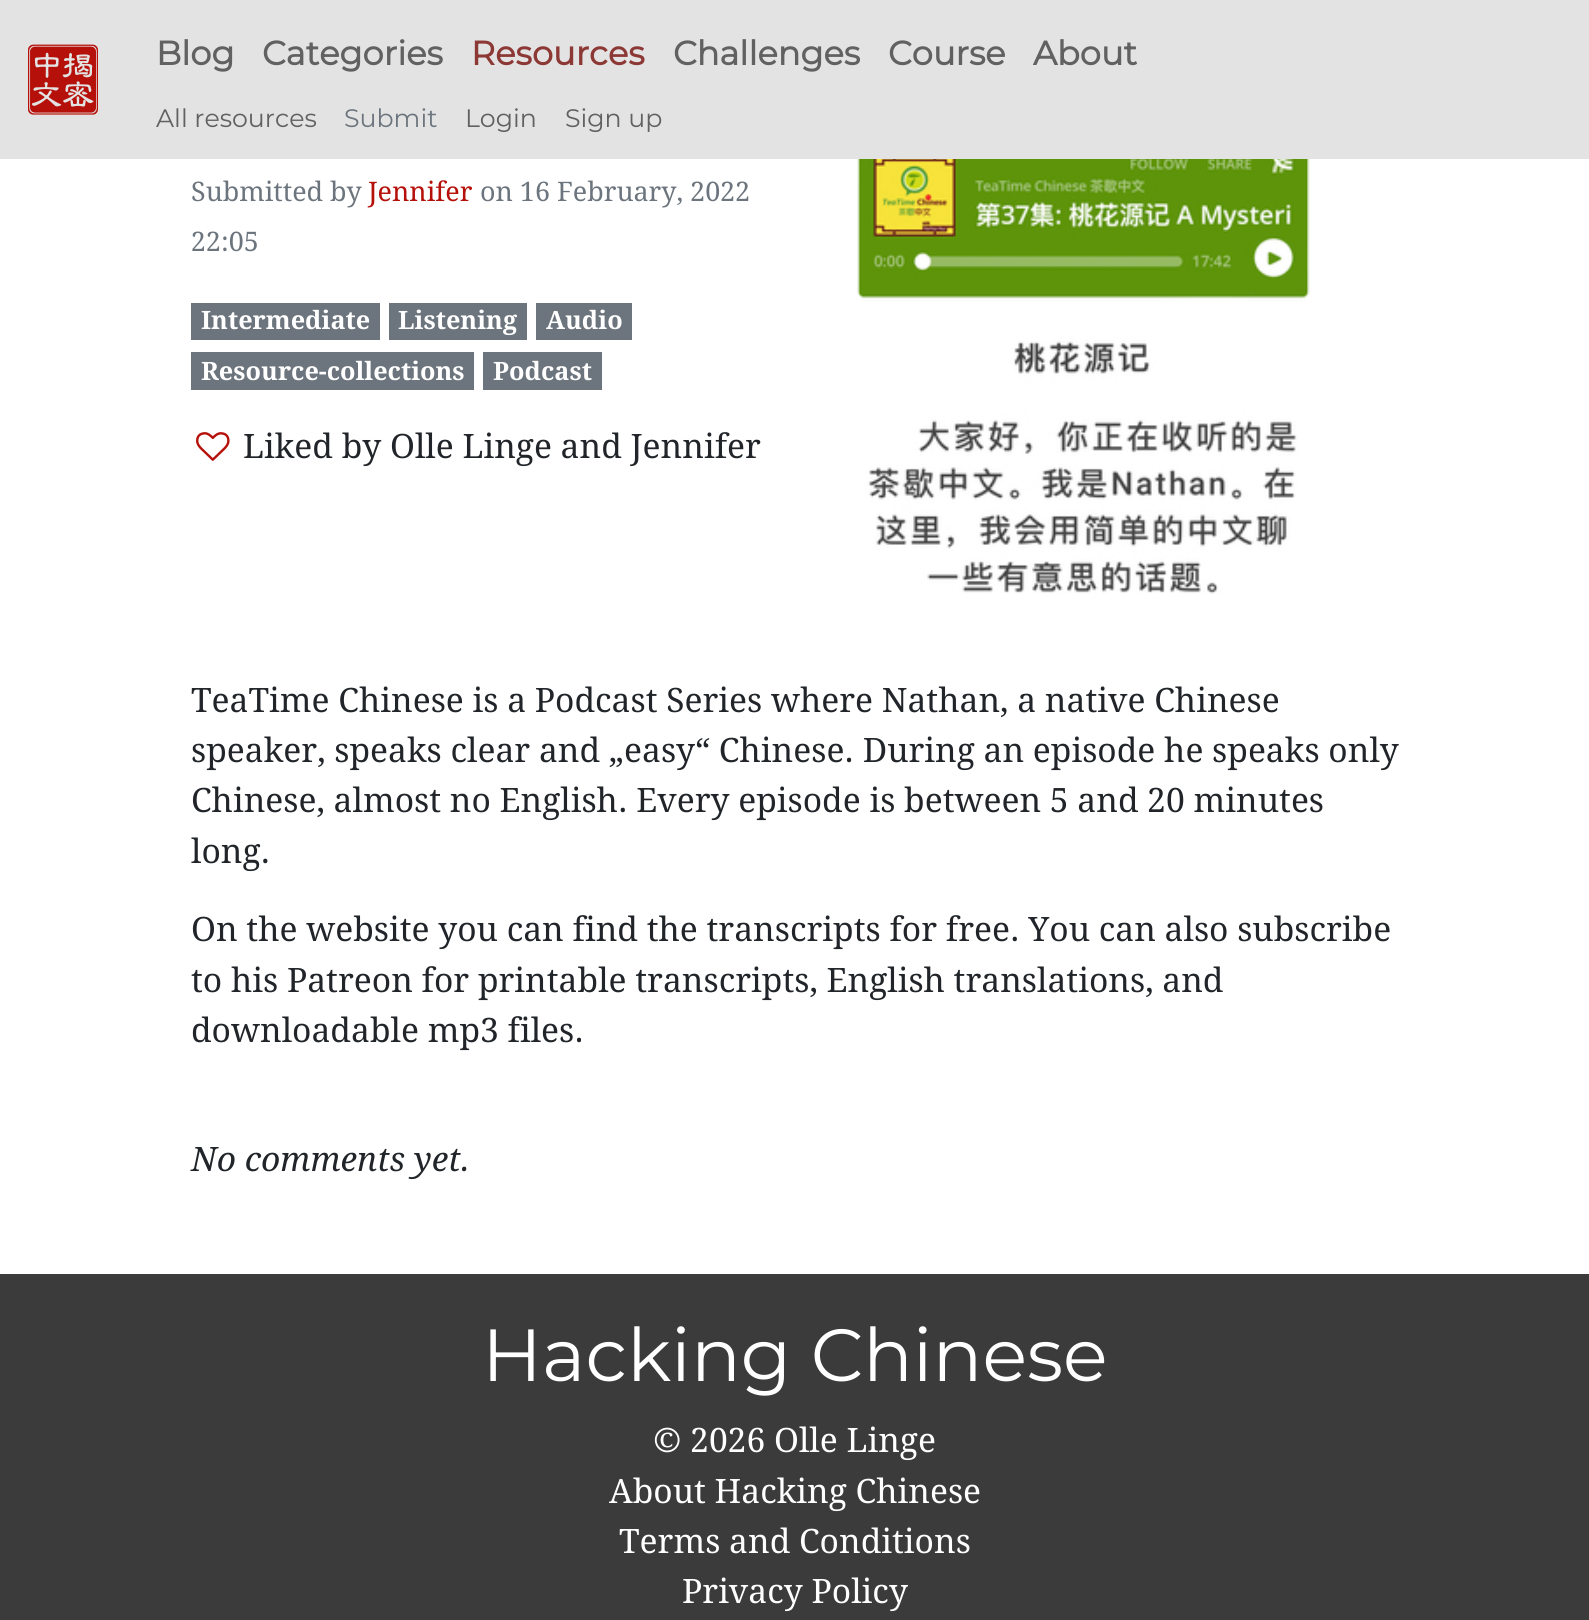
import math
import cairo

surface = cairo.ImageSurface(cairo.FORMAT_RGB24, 1589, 1620)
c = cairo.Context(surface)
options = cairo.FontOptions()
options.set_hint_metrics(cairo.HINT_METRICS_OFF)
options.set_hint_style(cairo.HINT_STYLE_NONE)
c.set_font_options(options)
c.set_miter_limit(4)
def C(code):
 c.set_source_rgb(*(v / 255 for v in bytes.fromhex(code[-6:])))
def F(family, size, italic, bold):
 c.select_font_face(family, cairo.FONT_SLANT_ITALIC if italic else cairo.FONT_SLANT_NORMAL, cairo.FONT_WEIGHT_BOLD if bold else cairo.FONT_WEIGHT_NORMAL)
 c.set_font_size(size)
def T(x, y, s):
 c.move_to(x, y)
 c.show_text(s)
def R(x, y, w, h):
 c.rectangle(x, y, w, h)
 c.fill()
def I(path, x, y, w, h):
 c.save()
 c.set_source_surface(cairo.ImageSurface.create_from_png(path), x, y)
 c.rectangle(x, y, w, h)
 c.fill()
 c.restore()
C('ffffff')
c.paint()
C('e3e3e3')
R(0,0,1589,159)
I('1.png',28,44,70,71)
F('Montserrat',33.6,0,1)
C('616161')
T(156,65,'Blog')
T(262,65,'Categories')
C('8c3936')
T(471,65,'Resources')
C('616161')
T(673,65,'Challenges')
T(888,65,'Course')
T(1033,65,'About')
F('Montserrat Thin',25.25,0,0)
T(156,127,'All resources')
C('6c757d')
T(344,127,'Submit')
C('616161')
T(465,127,'Login')
T(565,127,'Sign up')
F('Droid Serif',26.9,0,0)
C('6c757d')
T(191,201,'Submitted by')
C('b6100a')
T(368,201,'Jennifer')
C('6c757d')
T(480,201,'on 16 February, 2022')
T(191,251,'22:05')
R(191,303,189,37)
F('Droid Serif',25.25,0,1)
C('ffffff')
T(201,329,'Intermediate')
C('6c757d')
R(389,303,138,37)
C('ffffff')
T(398,329,'Listening')
C('6c757d')
R(536,303,96,37)
C('ffffff')
T(546,329,'Audio')
C('6c757d')
R(191,352,283,38)
C('ffffff')
T(201,380,'Resource-collections')
C('6c757d')
R(483,352,119,38)
C('ffffff')
T(493,380,'Podcast')
I('2.png',196,432,34,29)
F('Droid Serif',33.6,0,0)
C('212529')
T(243,458,'Liked by Olle Linge and Jennifer')
I('3.png',857,159,453,435)
T(191,712,'TeaTime Chinese is a Podcast Series where Nathan, a native Chinese')
T(191,762,'speaker, speaks clear and „easy“ Chinese. During an episode he speaks only')
T(191,812,'Chinese, almost no English. Every episode is between 5 and 20 minutes')
T(191,863,'long.')
T(191,941,'On the website you can find the transcripts for free. You can also subscribe')
T(191,992,'to his Patreon for printable transcripts, English translations, and')
T(191,1042,'downloadable mp3 files.')
F('Droid Serif',33.6,1,0)
T(191,1171,'No comments yet.')
C('3b3b3b')
R(0,1274,1589,346)
F('Montserrat Thin',73.75,0,0)
C('ffffff')
T(482,1381,'Hacking Chinese')
F('Droid Serif',33.6,0,0)
T(653,1452,'© 2026 Olle Linge')
T(609,1503,'About Hacking Chinese')
T(619,1553,'Terms and Conditions')
T(682,1603,'Privacy Policy')
surface.write_to_png('o.png')
